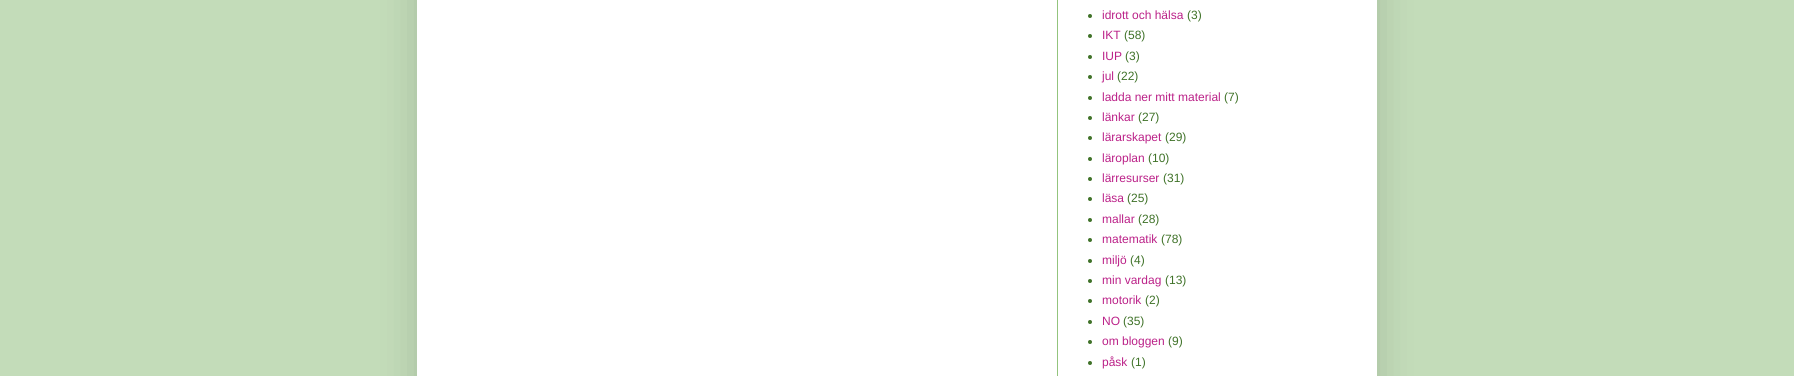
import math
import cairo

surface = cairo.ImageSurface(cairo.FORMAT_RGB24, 1794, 376)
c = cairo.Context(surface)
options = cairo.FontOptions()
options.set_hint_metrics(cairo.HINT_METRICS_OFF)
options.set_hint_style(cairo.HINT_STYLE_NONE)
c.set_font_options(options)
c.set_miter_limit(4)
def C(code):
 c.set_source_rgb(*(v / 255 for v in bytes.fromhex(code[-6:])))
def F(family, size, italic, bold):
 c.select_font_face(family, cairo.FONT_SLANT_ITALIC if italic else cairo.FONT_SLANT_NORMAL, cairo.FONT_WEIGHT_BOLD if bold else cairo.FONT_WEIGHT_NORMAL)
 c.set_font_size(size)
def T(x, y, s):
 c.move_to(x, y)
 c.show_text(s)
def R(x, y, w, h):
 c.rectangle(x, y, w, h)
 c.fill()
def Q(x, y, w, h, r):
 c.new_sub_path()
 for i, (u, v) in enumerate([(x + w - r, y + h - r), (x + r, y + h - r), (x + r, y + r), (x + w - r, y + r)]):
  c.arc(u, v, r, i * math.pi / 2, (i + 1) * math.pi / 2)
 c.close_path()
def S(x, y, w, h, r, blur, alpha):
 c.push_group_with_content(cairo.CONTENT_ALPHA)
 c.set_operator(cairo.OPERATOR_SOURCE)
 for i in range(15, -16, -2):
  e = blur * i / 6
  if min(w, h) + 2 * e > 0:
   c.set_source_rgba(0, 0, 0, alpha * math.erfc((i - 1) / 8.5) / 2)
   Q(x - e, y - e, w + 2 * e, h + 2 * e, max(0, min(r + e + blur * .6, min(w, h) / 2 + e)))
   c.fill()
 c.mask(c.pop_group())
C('c3dcb9')
c.paint()
C('000000')
S(417,-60,960,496,0,20,.15)
C('ffffff')
R(417,0,960,376)
C('93c47d')
R(1057,0,1,376)
C('3f7228')
c.arc(1090,16,2,0,2 * math.pi)
c.fill()
F('Liberation Sans',12,0,0)
C('bb2188')
T(1102,19,'idrott och hälsa')
C('3f7228')
T(1187,19,'(3)')
c.new_path()
c.arc(1090,36,2,0,2 * math.pi)
c.fill()
C('bb2188')
T(1102,39,'IKT')
C('3f7228')
T(1124,39,'(58)')
c.new_path()
c.arc(1090,57,2,0,2 * math.pi)
c.fill()
C('bb2188')
T(1102,60,'IUP')
C('3f7228')
T(1125,60,'(3)')
c.new_path()
c.arc(1090,77,2,0,2 * math.pi)
c.fill()
C('bb2188')
T(1102,80,'jul')
C('3f7228')
T(1117,80,'(22)')
c.new_path()
c.arc(1090,98,2,0,2 * math.pi)
c.fill()
C('bb2188')
T(1102,101,'ladda ner mitt material')
C('3f7228')
T(1224,101,'(7)')
c.new_path()
c.arc(1090,118,2,0,2 * math.pi)
c.fill()
C('bb2188')
T(1102,121,'länkar')
C('3f7228')
T(1138,121,'(27)')
c.new_path()
c.arc(1090,138,2,0,2 * math.pi)
c.fill()
C('bb2188')
T(1102,141,'lärarskapet')
C('3f7228')
T(1165,141,'(29)')
c.new_path()
c.arc(1090,159,2,0,2 * math.pi)
c.fill()
C('bb2188')
T(1102,162,'läroplan')
C('3f7228')
T(1148,162,'(10)')
c.new_path()
c.arc(1090,179,2,0,2 * math.pi)
c.fill()
C('bb2188')
T(1102,182,'lärresurser')
C('3f7228')
T(1163,182,'(31)')
c.new_path()
c.arc(1090,199,2,0,2 * math.pi)
c.fill()
C('bb2188')
T(1102,202,'läsa')
C('3f7228')
T(1127,202,'(25)')
c.new_path()
c.arc(1090,220,2,0,2 * math.pi)
c.fill()
C('bb2188')
T(1102,223,'mallar')
C('3f7228')
T(1138,223,'(28)')
c.new_path()
c.arc(1090,240,2,0,2 * math.pi)
c.fill()
C('bb2188')
T(1102,243,'matematik')
C('3f7228')
T(1161,243,'(78)')
c.new_path()
c.arc(1090,261,2,0,2 * math.pi)
c.fill()
C('bb2188')
T(1102,264,'miljö')
C('3f7228')
T(1130,264,'(4)')
c.new_path()
c.arc(1090,281,2,0,2 * math.pi)
c.fill()
C('bb2188')
T(1102,284,'min vardag')
C('3f7228')
T(1165,284,'(13)')
c.new_path()
c.arc(1090,301,2,0,2 * math.pi)
c.fill()
C('bb2188')
T(1102,304,'motorik')
C('3f7228')
T(1145,304,'(2)')
c.new_path()
c.arc(1090,322,2,0,2 * math.pi)
c.fill()
C('bb2188')
T(1102,325,'NO')
C('3f7228')
T(1123,325,'(35)')
c.new_path()
c.arc(1090,342,2,0,2 * math.pi)
c.fill()
C('bb2188')
T(1102,345,'om bloggen')
C('3f7228')
T(1168,345,'(9)')
c.new_path()
c.arc(1090,363,2,0,2 * math.pi)
c.fill()
C('bb2188')
T(1102,366,'påsk')
C('3f7228')
T(1131,366,'(1)')
surface.write_to_png('o.png')
